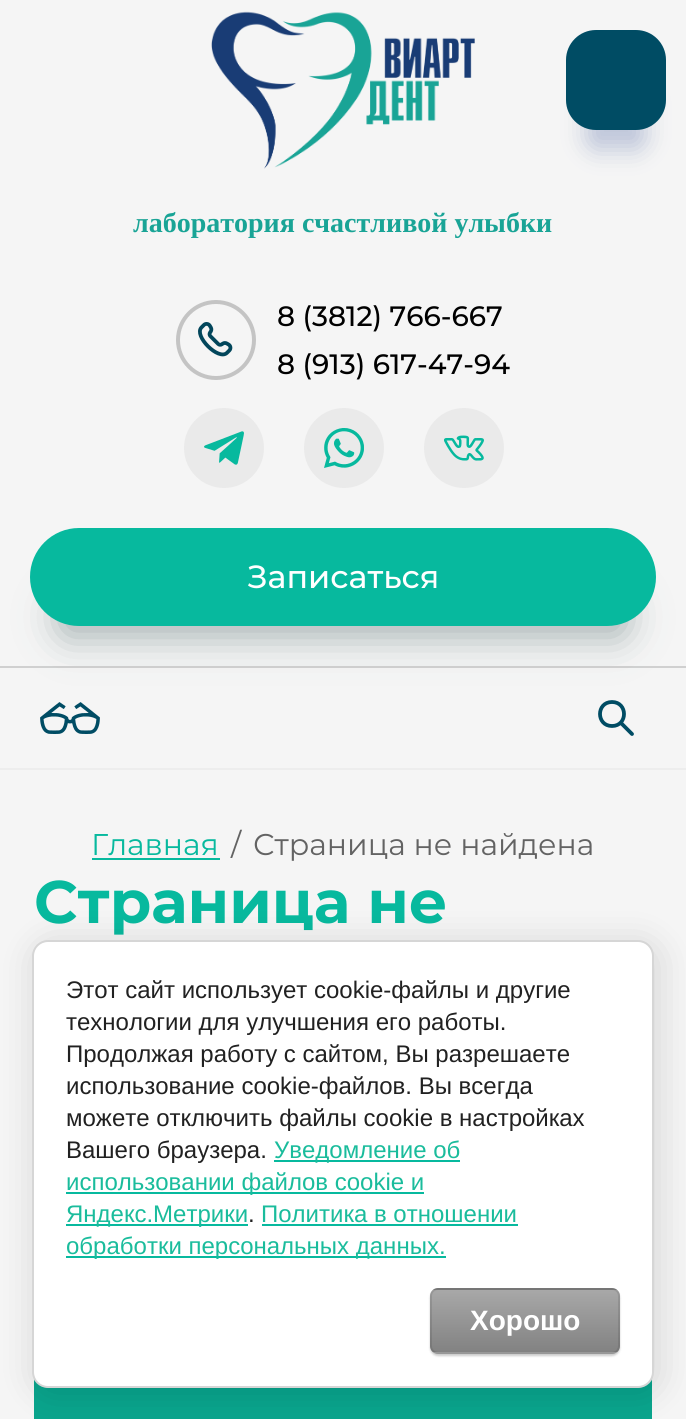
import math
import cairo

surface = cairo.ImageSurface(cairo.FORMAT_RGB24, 686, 1419)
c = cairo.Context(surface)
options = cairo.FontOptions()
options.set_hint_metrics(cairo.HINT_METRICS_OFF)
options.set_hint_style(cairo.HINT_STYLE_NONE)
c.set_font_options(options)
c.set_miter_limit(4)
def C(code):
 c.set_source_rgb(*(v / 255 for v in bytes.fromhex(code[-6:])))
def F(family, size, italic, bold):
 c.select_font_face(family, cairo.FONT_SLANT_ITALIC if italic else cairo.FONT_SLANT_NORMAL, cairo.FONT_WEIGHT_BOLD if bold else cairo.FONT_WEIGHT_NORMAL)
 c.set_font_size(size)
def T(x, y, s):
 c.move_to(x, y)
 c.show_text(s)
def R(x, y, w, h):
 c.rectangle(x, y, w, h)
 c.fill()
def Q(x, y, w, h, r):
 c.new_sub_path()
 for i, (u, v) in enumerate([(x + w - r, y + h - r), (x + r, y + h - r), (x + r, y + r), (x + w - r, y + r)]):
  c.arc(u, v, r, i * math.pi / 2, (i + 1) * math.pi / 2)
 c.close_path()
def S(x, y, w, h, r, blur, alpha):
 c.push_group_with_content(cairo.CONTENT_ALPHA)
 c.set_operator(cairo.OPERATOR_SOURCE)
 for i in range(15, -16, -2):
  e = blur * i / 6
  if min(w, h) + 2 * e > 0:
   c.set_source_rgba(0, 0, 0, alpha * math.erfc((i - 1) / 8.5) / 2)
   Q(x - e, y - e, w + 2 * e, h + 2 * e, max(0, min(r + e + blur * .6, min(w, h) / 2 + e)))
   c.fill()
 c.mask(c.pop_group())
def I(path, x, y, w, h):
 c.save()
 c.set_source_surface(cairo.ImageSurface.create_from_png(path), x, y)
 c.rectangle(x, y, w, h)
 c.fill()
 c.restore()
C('f5f5f5')
c.paint()
C('344e94')
S(586,90,60,60,10,12,.28)
C('004c64')
Q(566,30,100,100,30)
c.fill()
I('1.png',211,11,264,158)
F('Liberation Serif',28,0,1)
C('19a496')
T(133,232,'лаборатория счастливой улыбки')
c.new_path()
c.arc(216,340,38,0,2 * math.pi)
C('c4c4c4')
c.set_line_width(4)
c.stroke()
I('2.png',198,322,35,35)
F('Montserrat Medium',28,0,0)
C('000000')
T(277,326,'8 (3812) 766-667')
T(277,374,'8 (913) 617-47-94')
C('eaeaea')
c.new_path()
c.arc(224,448,40,0,2 * math.pi)
c.fill()
I('3.png',204,431,40,34)
c.arc(344,448,40,0,2 * math.pi)
c.fill()
I('4.png',324,428,40,40)
c.arc(464,448,40,0,2 * math.pi)
c.fill()
I('5.png',444,435,40,26)
C('2a494b')
S(60,598,566,38,19,20,.4)
C('07b99e')
Q(30,528,626,98,49)
c.fill()
F('Montserrat Medium',32,0,0)
C('ffffff')
T(247,588,'Записаться')
c.set_source_rgba(0,0,0,0.15)
R(0,666,686,2)
I('6.png',40,702,60,32)
c.new_path()
c.move_to(612,726)
c.curve_to(628,726,628,702,612,702)
c.curve_to(596,702,596,726,612,726)
c.close_path()
c.move_to(621.5,723.5)
c.line_to(632,734)
C('004c64')
c.set_line_width(3.8)
c.set_line_cap(cairo.LINE_CAP_ROUND)
c.stroke()
C('ededed')
R(0,768,686,2)
F('Montserrat',30,0,0)
C('07b99e')
T(91,855,'Главная')
R(92,858,128,2)
C('636363')
T(231,855,'/')
T(253,855,'Страница не найдена')
F('Montserrat',60,0,1)
C('07b99e')
T(34,923,'Страница не')
C('09a58d')
R(34,1379,618,40)
C('000000')
S(36,944,622,448,16,18,.14)
C('ffffff')
Q(33,941,620,446,15)
c.fill_preserve()
C('d6d6d6')
c.set_line_width(2)
c.set_line_cap(cairo.LINE_CAP_BUTT)
c.stroke()
F('Liberation Sans',24,0,0)
C('212121')
T(66,998,'Этот сайт использует cookie-файлы и другие')
T(66,1030,'технологии для улучшения его работы.')
T(66,1062,'Продолжая работу с сайтом, Вы разрешаете')
T(66,1094,'использование cookie-файлов. Вы всегда')
T(66,1126,'можете отключить файлы cookie в настройках')
T(66,1158,'Вашего браузера.')
C('07b99e')
R(274,1160,186,2)
C('1abc9c')
T(274,1158,'Уведомление об')
C('07b99e')
R(66,1192,358,2)
C('1abc9c')
T(66,1190,'использовании файлов cookie и')
C('07b99e')
R(66,1224,182,2)
C('1abc9c')
T(66,1222,'Яндекс.Метрики')
C('212121')
T(248,1222,'.')
C('1abc9c')
T(261,1222,'Политика в отношении')
C('07b99e')
R(262,1224,256,2)
R(66,1256,380,2)
C('1abc9c')
T(66,1254,'обработки персональных данных.')
C('000000')
S(430,1290,190,66,8,1,.2)
c.save()
Q(430,1288,190,66,8)
c.clip()
gradient = cairo.LinearGradient(525,1228,525,1290)
gradient.add_color_stop_rgba(0,0.659,0.659,0.659,1)
gradient.add_color_stop_rgba(1,0.51,0.51,0.51,1)
c.set_source(gradient)
R(430,1288,190,2)
gradient = cairo.LinearGradient(525,1290,525,1352)
gradient.add_color_stop_rgba(0,0.659,0.659,0.659,1)
gradient.add_color_stop_rgba(1,0.51,0.51,0.51,1)
c.set_source(gradient)
R(430,1290,190,62)
gradient = cairo.LinearGradient(525,1352,525,1414)
gradient.add_color_stop_rgba(0,0.659,0.659,0.659,1)
gradient.add_color_stop_rgba(1,0.51,0.51,0.51,1)
c.set_source(gradient)
R(430,1352,190,2)
c.restore()
Q(431,1289,188,64,7)
c.set_source_rgba(0,0,0,0.1)
c.stroke()
F('Liberation Sans',28,0,1)
C('ffffff')
T(470,1330,'Хорошо')
surface.write_to_png('o.png')
